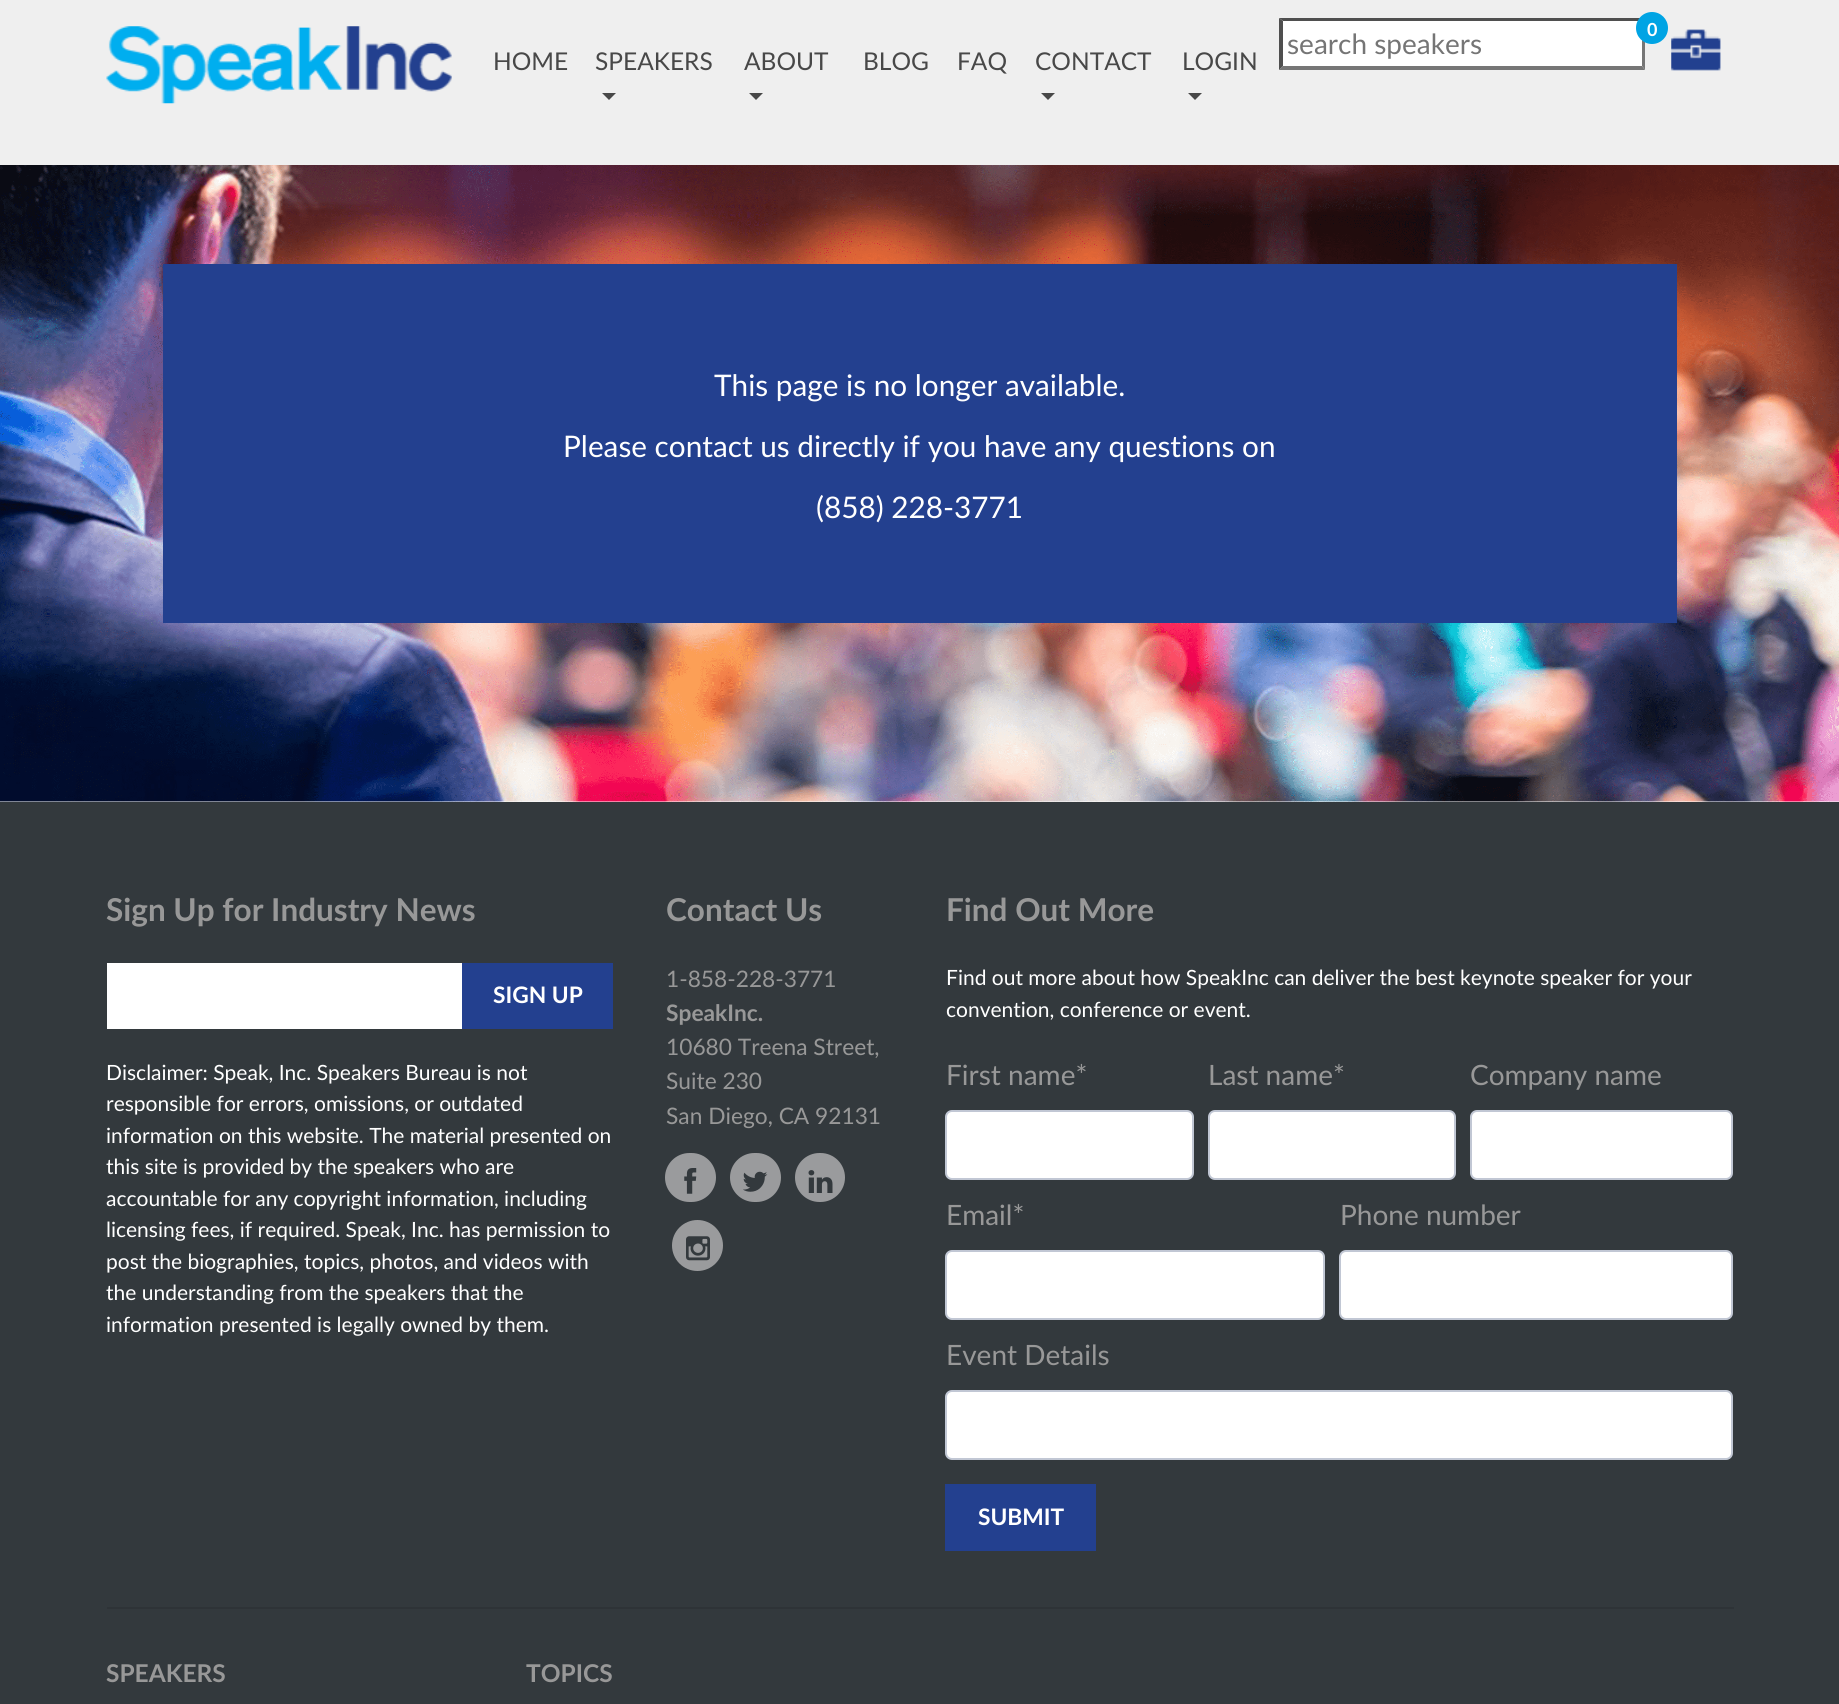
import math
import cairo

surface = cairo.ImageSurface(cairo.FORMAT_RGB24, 1839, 1704)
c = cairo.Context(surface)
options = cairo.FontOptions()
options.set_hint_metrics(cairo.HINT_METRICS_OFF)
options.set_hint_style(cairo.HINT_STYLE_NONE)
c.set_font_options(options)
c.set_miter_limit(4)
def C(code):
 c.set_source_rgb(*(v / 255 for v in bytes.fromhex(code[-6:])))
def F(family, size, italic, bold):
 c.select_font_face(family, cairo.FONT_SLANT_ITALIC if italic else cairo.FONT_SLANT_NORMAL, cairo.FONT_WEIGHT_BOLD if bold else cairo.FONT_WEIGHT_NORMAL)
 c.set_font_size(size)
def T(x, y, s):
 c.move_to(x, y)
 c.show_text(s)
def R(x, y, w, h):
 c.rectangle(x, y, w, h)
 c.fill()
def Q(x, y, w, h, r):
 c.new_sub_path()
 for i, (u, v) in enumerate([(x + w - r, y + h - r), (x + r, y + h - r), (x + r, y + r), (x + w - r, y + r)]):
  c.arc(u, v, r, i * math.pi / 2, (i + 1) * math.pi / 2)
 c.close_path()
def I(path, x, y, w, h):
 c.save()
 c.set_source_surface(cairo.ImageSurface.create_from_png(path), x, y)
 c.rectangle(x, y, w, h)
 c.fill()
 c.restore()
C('ffffff')
c.paint()
C('efefef')
R(0,0,1839,165)
I('1.png',106,26,346,78)
C('ffffff')
R(1279,18,366,52)
C('4f4f4f')
c.new_path()
c.move_to(1279,18)
c.line_to(1645,18)
c.line_to(1642,21)
c.line_to(1283,21)
c.close_path()
c.fill()
C('767676')
c.new_path()
c.move_to(1645,18)
c.line_to(1645,70)
c.line_to(1642,66)
c.line_to(1642,21)
c.close_path()
c.fill()
C('00a4e4')
c.arc(1652,28,16,0,2 * math.pi)
c.fill()
F('Lato',18,0,1)
C('ffffff')
T(1647,36,'0')
I('2.png',1671,29,50,42)
C('767676')
c.new_path()
c.move_to(1645,70)
c.line_to(1279,70)
c.line_to(1283,66)
c.line_to(1642,66)
c.close_path()
c.fill()
C('4f4f4f')
c.new_path()
c.move_to(1279,70)
c.line_to(1279,18)
c.line_to(1283,21)
c.line_to(1283,66)
c.close_path()
c.fill()
F('Lato',28,0,0)
C('757575')
T(1287,54,'search speakers')
F('Lato',24.5,0,0)
C('484848')
T(493,70,'HOME')
T(595,70,'SPEAKERS')
c.new_path()
c.move_to(602,93)
c.line_to(616,93)
c.line_to(609,100)
c.close_path()
c.fill()
T(744,70,'ABOUT')
c.new_path()
c.move_to(749,93)
c.line_to(763,93)
c.line_to(756,100)
c.close_path()
c.fill()
T(863,70,'BLOG')
T(957,70,'FAQ')
T(1035,70,'CONTACT')
c.new_path()
c.move_to(1041,93)
c.line_to(1055,93)
c.line_to(1048,100)
c.close_path()
c.fill()
T(1182,70,'LOGIN')
c.new_path()
c.move_to(1188,93)
c.line_to(1202,93)
c.line_to(1195,100)
c.close_path()
c.fill()
I('3.png',0,165,1839,637)
C('23408f')
R(163,264,1514,359)
F('Lato',29.75,0,0)
C('ffffff')
T(714,396,'This page is no longer available.')
T(563,457,'Please contact us directly if you have any questions on')
T(816,518,'(858) 228-3771')
C('33393d')
R(0,802,1839,902)
F('Lato',31.5,0,1)
C('989898')
T(106,921,'Sign Up for Industry News')
C('ffffff')
R(107,963,355,66)
C('23408f')
R(462,963,151,66)
F('Lato',22.75,0,1)
C('ffffff')
T(493,1003,'SIGN UP')
F('Lato',21,0,0)
T(106,1080,'Disclaimer: Speak, Inc. Speakers Bureau is not')
T(106,1111,'responsible for errors, omissions, or outdated')
T(106,1143,'information on this website. The material presented on')
T(106,1174,'this site is provided by the speakers who are')
T(106,1206,'accountable for any copyright information, including')
T(106,1237,'licensing fees, if required. Speak, Inc. has permission to')
T(106,1269,'post the biographies, topics, photos, and videos with')
T(106,1300,'the understanding from the speakers that the')
T(106,1332,'information presented is legally owned by them.')
F('Lato',31.5,0,1)
C('989898')
T(666,921,'Contact Us')
F('Lato',22.75,0,0)
T(666,987,'1-858-228-3771')
F('Lato',22.75,0,1)
T(666,1021,'SpeakInc.')
F('Lato',22.75,0,0)
T(666,1055,'10680 Treena Street,')
T(666,1089,'Suite 230')
T(666,1124,'San Diego, CA 92131')
C('9a9b9d')
Q(665,1153,51,49,24.5)
c.fill()
I('4.png',684,1168,13,26)
Q(730,1153,51,49,24.5)
c.fill()
I('5.png',743,1171,25,21)
Q(795,1153,50,49,24.5)
c.fill()
I('6.png',808,1170,25,23)
c.arc(697.5,1245.5,25.5,0,2 * math.pi)
c.fill()
I('7.png',686,1236,24,25)
F('Lato',31.5,0,1)
C('989898')
T(946,921,'Find Out More')
F('Lato',21,0,0)
C('ffffff')
T(946,985,'Find out more about how SpeakInc can deliver the best keynote speaker for your')
T(946,1017,'convention, conference or event.')
F('Lato',28,0,0)
C('989898')
T(946,1085,'First name*')
C('ffffff')
Q(946,1111,247,68,6)
c.fill_preserve()
C('c1c7d4')
c.stroke()
C('989898')
T(1208,1085,'Last name*')
C('ffffff')
Q(1209,1111,246,68,6)
c.fill_preserve()
C('c1c7d4')
c.stroke()
C('989898')
T(1470,1085,'Company name')
C('ffffff')
Q(1471,1111,261,68,6)
c.fill_preserve()
C('c1c7d4')
c.stroke()
C('989898')
T(946,1225,'Email*')
C('ffffff')
Q(946,1251,378,68,6)
c.fill_preserve()
C('c1c7d4')
c.stroke()
C('989898')
T(1340,1225,'Phone number')
C('ffffff')
Q(1340,1251,392,68,6)
c.fill_preserve()
C('c1c7d4')
c.stroke()
C('989898')
T(946,1365,'Event Details')
C('ffffff')
Q(946,1391,786,68,6)
c.fill_preserve()
C('c1c7d4')
c.stroke()
C('23408f')
R(945,1484,151,67)
F('Lato',22.75,0,1)
C('ffffff')
T(978,1525,'SUBMIT')
C('2e3337')
R(107,1607,1627,2)
F('Lato',24.5,0,1)
C('989898')
T(106,1682,'SPEAKERS')
T(526,1682,'TOPICS')
surface.write_to_png('o.png')
